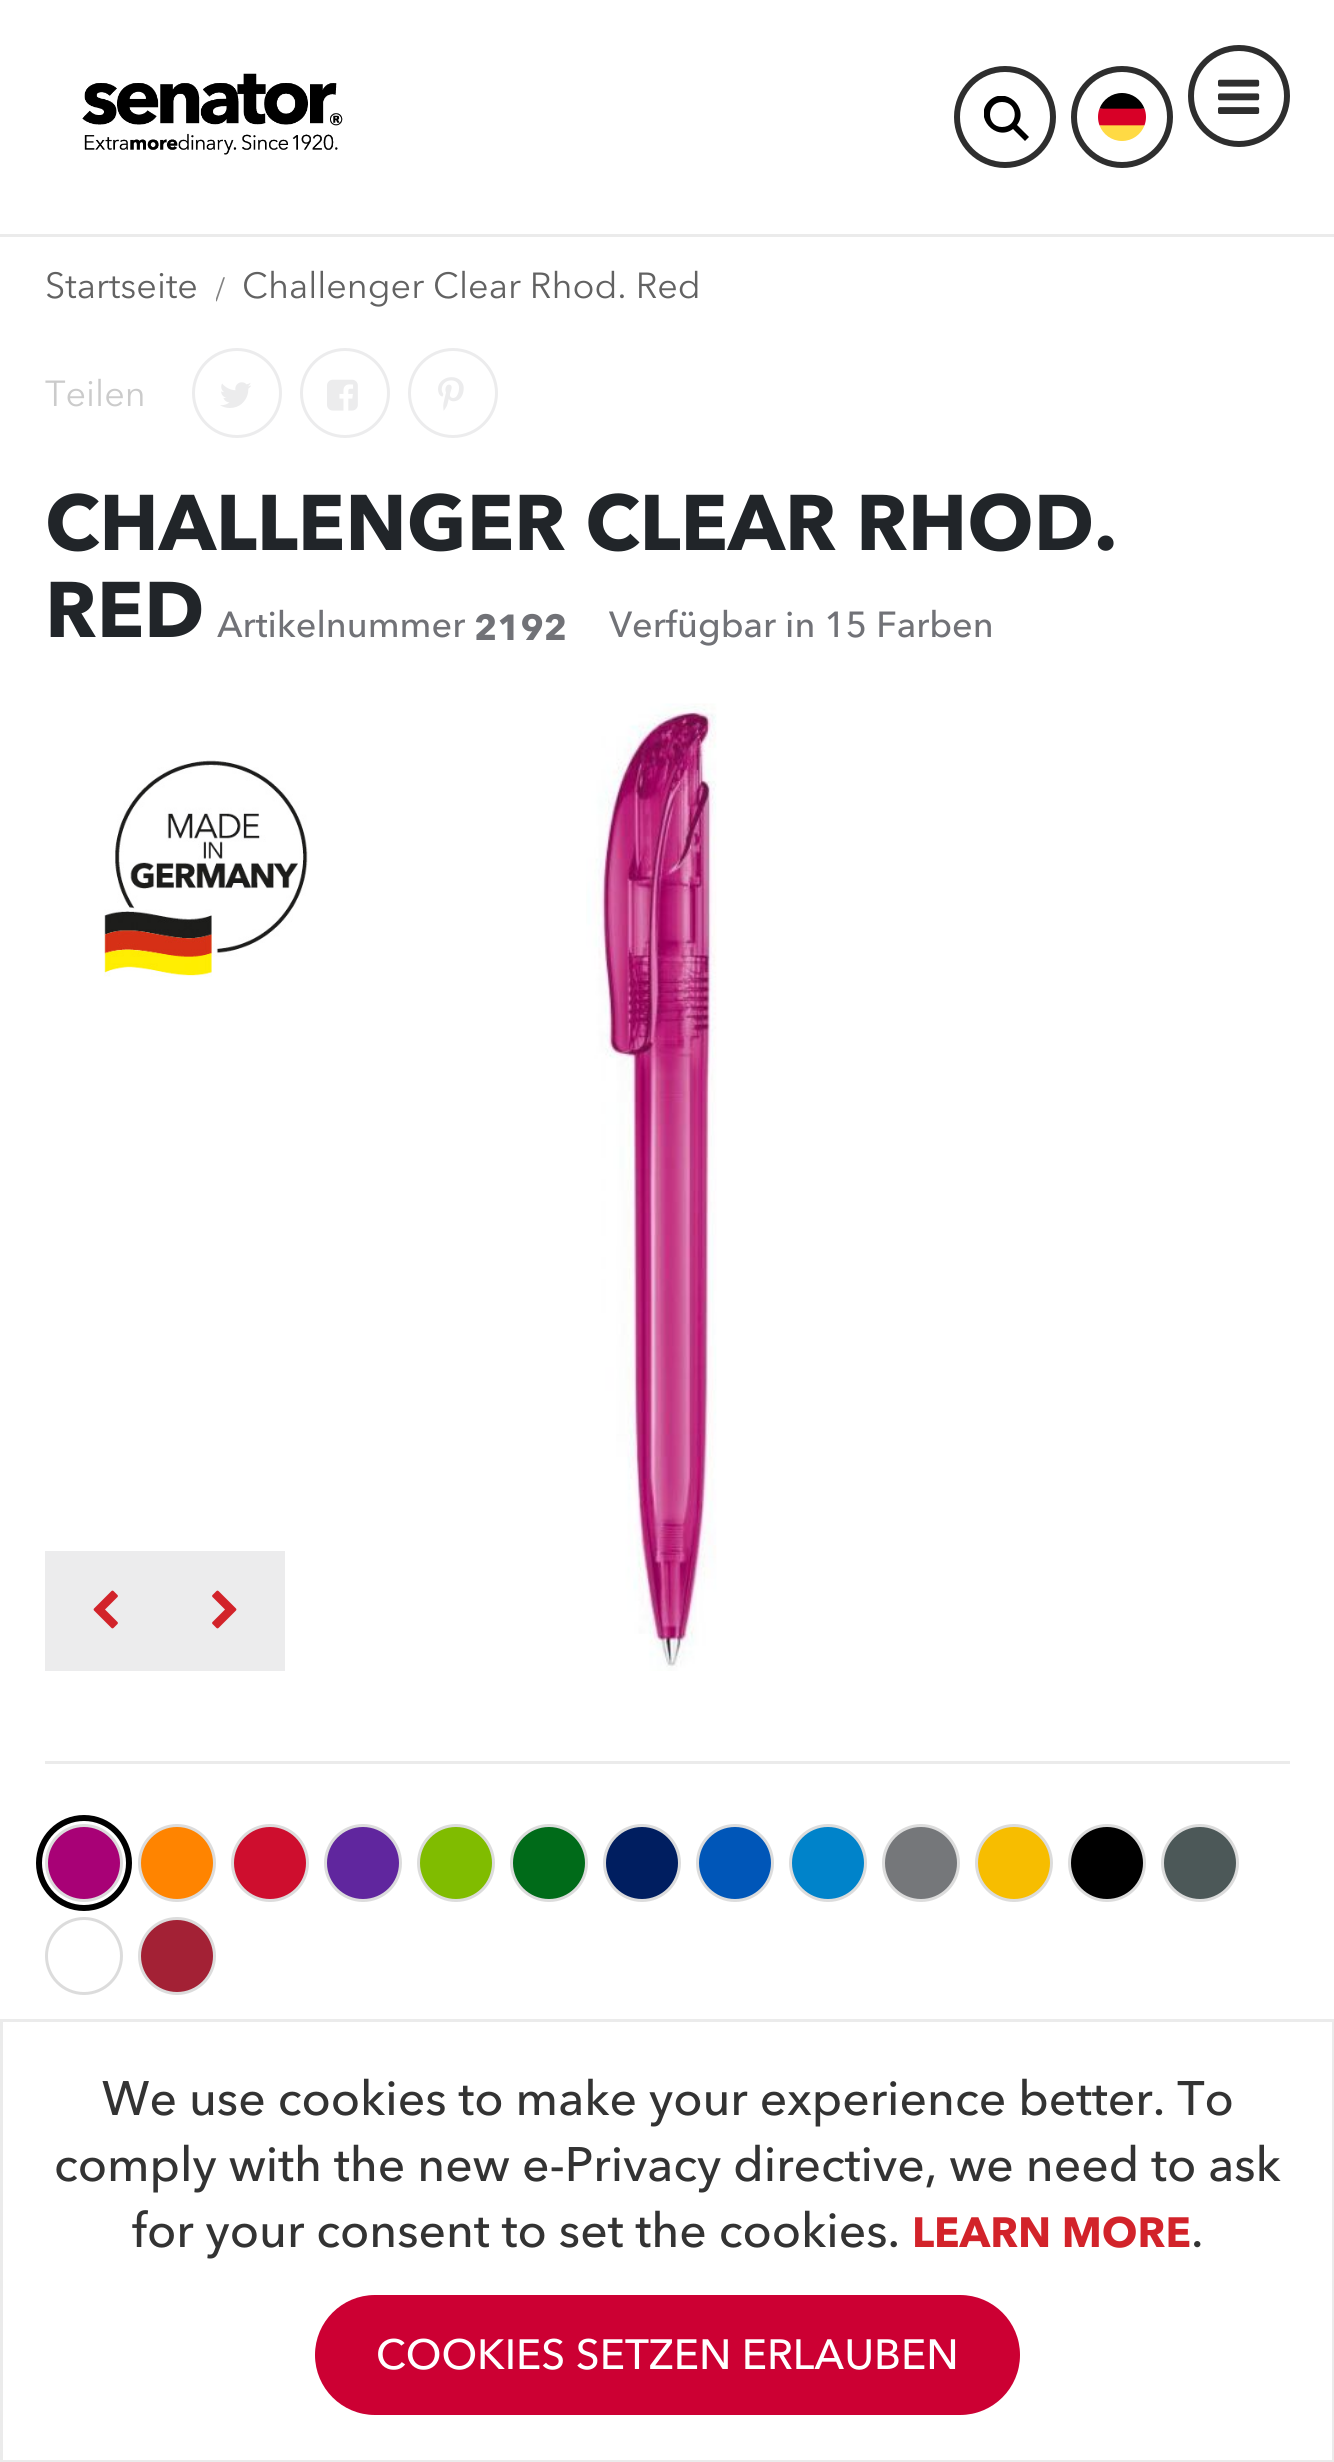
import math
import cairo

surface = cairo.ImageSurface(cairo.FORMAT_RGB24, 1334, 2462)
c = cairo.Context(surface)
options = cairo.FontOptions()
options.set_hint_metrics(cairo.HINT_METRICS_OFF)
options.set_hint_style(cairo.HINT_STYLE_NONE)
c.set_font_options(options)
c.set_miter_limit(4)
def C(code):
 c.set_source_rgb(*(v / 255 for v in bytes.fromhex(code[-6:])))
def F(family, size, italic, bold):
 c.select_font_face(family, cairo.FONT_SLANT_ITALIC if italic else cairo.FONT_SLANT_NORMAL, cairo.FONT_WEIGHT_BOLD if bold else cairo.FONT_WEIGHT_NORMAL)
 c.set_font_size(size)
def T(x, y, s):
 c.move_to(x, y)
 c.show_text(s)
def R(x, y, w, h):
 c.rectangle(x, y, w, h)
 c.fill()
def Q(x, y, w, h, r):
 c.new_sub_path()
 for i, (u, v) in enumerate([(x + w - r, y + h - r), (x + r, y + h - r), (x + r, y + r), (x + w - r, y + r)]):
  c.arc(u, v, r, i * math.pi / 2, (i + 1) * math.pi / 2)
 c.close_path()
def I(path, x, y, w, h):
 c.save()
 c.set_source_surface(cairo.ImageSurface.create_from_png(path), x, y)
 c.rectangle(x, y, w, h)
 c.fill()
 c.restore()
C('ffffff')
c.paint()
C('ebebeb')
R(0,234,1334,3)
I('1.png',82,73,261,82)
c.arc(1005,117,48,0,2 * math.pi)
C('2e2e2e')
c.set_line_width(6)
c.stroke()
c.save()
c.rectangle(984,96,45,45)
c.clip()
C('000000')
c.new_path()
c.move_to(1017,125)
c.curve_to(1030,108,1005,85,989,101)
c.curve_to(973,117,996,142,1013,129)
c.line_to(1025,141)
c.line_to(1029,137)
c.close_path()
c.move_to(1002,127)
c.curve_to(986,127,986,102,1002,102)
c.curve_to(1019,102,1019,127,1002,127)
c.close_path()
c.fill()
c.restore()
c.arc(1122,117,48,0,2 * math.pi)
c.stroke()
I('2.png',1098,93,48,48)
c.arc(1239,96,48,0,2 * math.pi)
c.stroke()
I('3.png',1218,79,42,35)
F('Avenir Next',36,0,0)
C('626262')
T(45,298,'Startseite')
c.save()
c.rectangle(216,267,9,36)
c.clip()
F('Liberation Serif',36,0,0)
C('828282')
T(215,301,'/')
c.restore()
T(242,298,'Challenger Clear Rhod. Red')
C('cbcbcb')
T(45,406,'Teilen')
c.new_path()
c.arc(237,393,43.5,0,2 * math.pi)
C('ececed')
c.set_line_width(3)
c.stroke()
I('4.png',220,382,31,26)
c.arc(345,393,43.5,0,2 * math.pi)
c.stroke()
I('5.png',327,379,31,32)
c.arc(453,393,43.5,0,2 * math.pi)
c.stroke()
I('6.png',438,377,26,34)
F('Avenir Next',78,0,1)
C('212529')
T(45,550,'CHALLENGER CLEAR RHOD.')
T(45,637,'RED')
F('Avenir Next Medium',36,0,0)
C('717277')
T(217,637,'Artikelnummer')
F('Avenir Next',36,0,1)
T(474,640,'2192')
F('Avenir Next Medium',36,0,0)
T(609,637,'Verfügbar in 15 Farben')
C('ececed')
R(45,1551,240,120)
I('7.png',93,1590,25,39)
I('8.png',586,703,131,968)
I('9.png',212,1590,25,39)
I('10.png',104,760,204,217)
C('ebebeb')
R(45,1761,1245,3)
C('a80176')
c.arc(84,1863,37.5,0,2 * math.pi)
c.fill_preserve()
C('dcdcdc')
c.stroke()
c.arc(84,1863,45,0,2 * math.pi)
C('000000')
c.set_line_width(6)
c.stroke()
C('ff8400')
c.arc(177,1863,37.5,0,2 * math.pi)
c.fill_preserve()
C('dcdcdc')
c.set_line_width(3)
c.stroke()
C('ce0e2e')
c.arc(270,1863,37.5,0,2 * math.pi)
c.fill_preserve()
C('dcdcdc')
c.stroke()
C('60269e')
c.arc(363,1863,37.5,0,2 * math.pi)
c.fill_preserve()
C('dcdcdc')
c.stroke()
C('80bc00')
c.arc(456,1863,37.5,0,2 * math.pi)
c.fill_preserve()
C('dcdcdc')
c.stroke()
C('006b19')
c.arc(549,1863,37.5,0,2 * math.pi)
c.fill_preserve()
C('dcdcdc')
c.stroke()
C('001e60')
c.arc(642,1863,37.5,0,2 * math.pi)
c.fill_preserve()
C('dcdcdc')
c.stroke()
C('0056b8')
c.arc(735,1863,37.5,0,2 * math.pi)
c.fill_preserve()
C('dcdcdc')
c.stroke()
C('0083ca')
c.arc(828,1863,37.5,0,2 * math.pi)
c.fill_preserve()
C('dcdcdc')
c.stroke()
C('75777a')
c.arc(921,1863,37.5,0,2 * math.pi)
c.fill_preserve()
C('dcdcdc')
c.stroke()
C('f7bd00')
c.arc(1014,1863,37.5,0,2 * math.pi)
c.fill_preserve()
C('dcdcdc')
c.stroke()
C('000000')
c.arc(1107,1863,37.5,0,2 * math.pi)
c.fill_preserve()
C('dcdcdc')
c.stroke()
C('4c5858')
c.arc(1200,1863,37.5,0,2 * math.pi)
c.fill_preserve()
C('dcdcdc')
c.stroke()
c.arc(84,1956,37.5,0,2 * math.pi)
c.stroke()
C('a32135')
c.arc(177,1956,37.5,0,2 * math.pi)
c.fill_preserve()
C('dcdcdc')
c.stroke()
c.rectangle(1.5,2020.5,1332,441)
C('ebebeb')
c.stroke()
F('Avenir Next Medium',48,0,0)
C('333333')
T(102,2115,'We use cookies to make your experience better. To')
T(54,2181,'comply with the new e-Privacy directive, we need to ask')
T(132,2247,'for your consent to set the cookies.')
F('Avenir Next',42,0,1)
C('d2232a')
T(912,2247,'LEARN MORE')
F('Avenir Next Medium',48,0,0)
C('333333')
T(1191,2247,'.')
C('cc0033')
Q(315,2295,705,120,60)
c.fill()
F('Avenir Next Medium',42,0,0)
C('ffffff')
T(376,2369,'COOKIES SETZEN ERLAUBEN')
surface.write_to_png('o.png')
